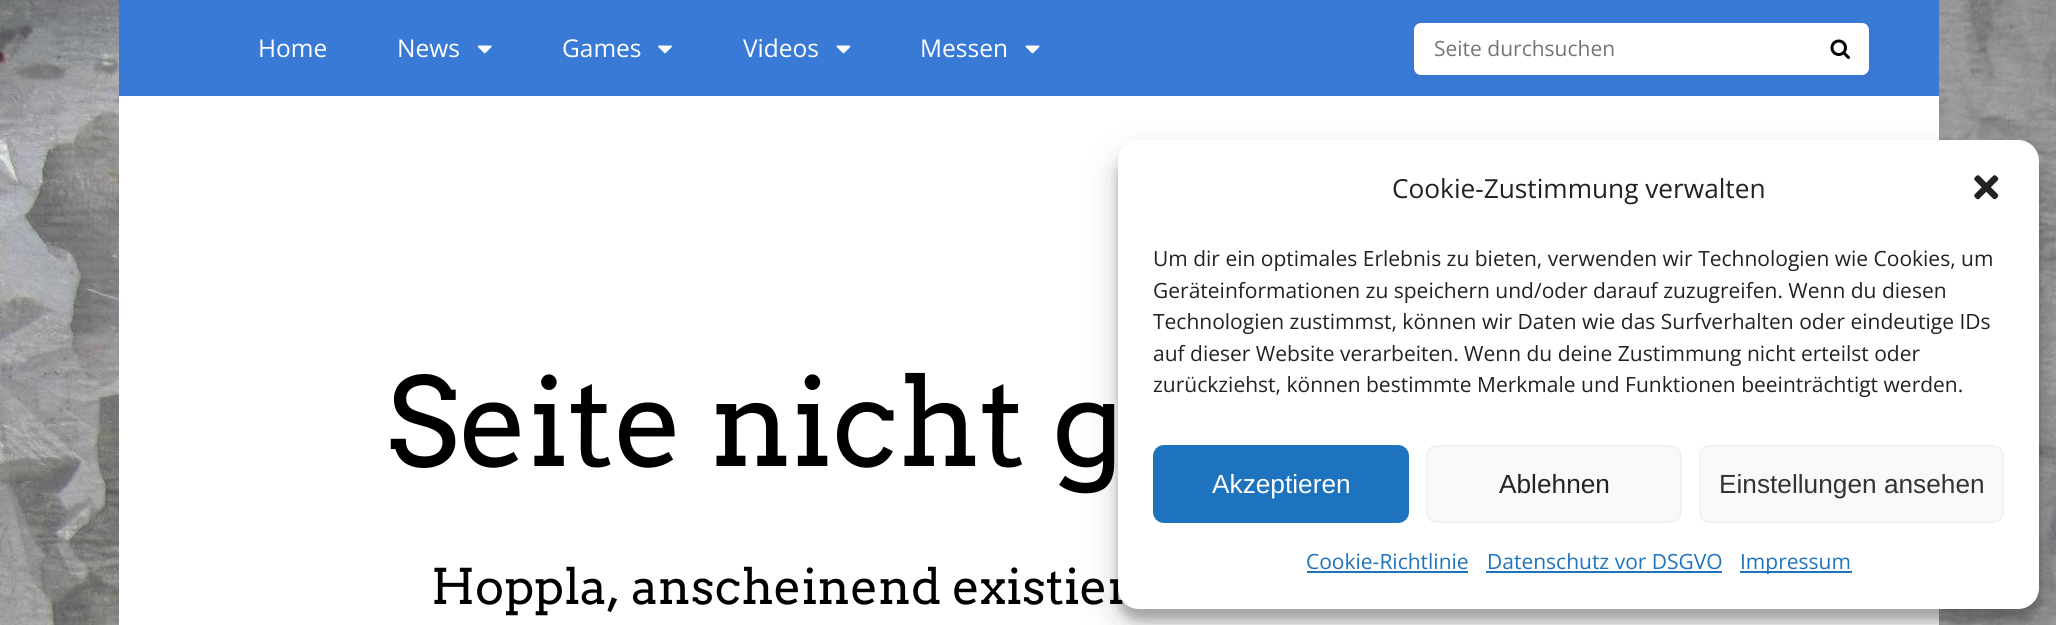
import math
import cairo

surface = cairo.ImageSurface(cairo.FORMAT_RGB24, 2056, 625)
c = cairo.Context(surface)
options = cairo.FontOptions()
options.set_hint_metrics(cairo.HINT_METRICS_OFF)
options.set_hint_style(cairo.HINT_STYLE_NONE)
c.set_font_options(options)
c.set_miter_limit(4)
def C(code):
 c.set_source_rgb(*(v / 255 for v in bytes.fromhex(code[-6:])))
def F(family, size, italic, bold):
 c.select_font_face(family, cairo.FONT_SLANT_ITALIC if italic else cairo.FONT_SLANT_NORMAL, cairo.FONT_WEIGHT_BOLD if bold else cairo.FONT_WEIGHT_NORMAL)
 c.set_font_size(size)
def T(x, y, s):
 c.move_to(x, y)
 c.show_text(s)
def R(x, y, w, h):
 c.rectangle(x, y, w, h)
 c.fill()
def Q(x, y, w, h, r):
 c.new_sub_path()
 for i, (u, v) in enumerate([(x + w - r, y + h - r), (x + r, y + h - r), (x + r, y + r), (x + w - r, y + r)]):
  c.arc(u, v, r, i * math.pi / 2, (i + 1) * math.pi / 2)
 c.close_path()
def S(x, y, w, h, r, blur, alpha):
 c.push_group_with_content(cairo.CONTENT_ALPHA)
 c.set_operator(cairo.OPERATOR_SOURCE)
 for i in range(15, -16, -2):
  e = blur * i / 6
  if min(w, h) + 2 * e > 0:
   c.set_source_rgba(0, 0, 0, alpha * math.erfc((i - 1) / 8.5) / 2)
   Q(x - e, y - e, w + 2 * e, h + 2 * e, max(0, min(r + e + blur * .6, min(w, h) / 2 + e)))
   c.fill()
 c.mask(c.pop_group())
def I(path, x, y, w, h):
 c.save()
 c.set_source_surface(cairo.ImageSurface.create_from_png(path), x, y)
 c.rectangle(x, y, w, h)
 c.fill()
 c.restore()
C('ffffff')
c.paint()
I('1.png',0,0,2056,625)
C('ffffff')
R(119,96,1820,529)
C('397ad6')
R(119,0,1820,96)
F('Open Sans',24.5,0,0)
C('ffffff')
T(258,57,'Home')
T(397,57,'News')
I('2.png',477,45,15,9)
T(562,57,'Games')
I('3.png',658,45,14,9)
T(743,57,'Videos')
I('4.png',836,45,15,9)
T(920,57,'Messen')
I('4.png',1025,45,15,9)
C('000000')
S(1416,25,455,52,0,4.5,.05)
C('ffffff')
Q(1415,24,453,50,6)
c.fill_preserve()
c.stroke()
F('Open Sans',21,0,0)
C('757575')
T(1434,56,'Seite durchsuchen')
I('5.png',1830,39,20,20)
F('Arvo',122.5,0,0)
C('000000')
T(386,466,'Seite nicht g')
F('Arvo',49,0,0)
T(431,604,'Hoppla, anscheinend existier')
C('000000')
S(1118,151,921,469,21,5,.23)
S(1118,158,921,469,21,17.5,.19)
C('ffffff')
Q(1118,140,921,469,21)
c.fill()
F('Open Sans',26.25,0,0)
C('222222')
T(1392,198,'Cookie-Zustimmung verwalten')
I('6.png',1974,175,25,25)
F('Open Sans',21,0,0)
T(1153,266,'Um dir ein optimales Erlebnis zu bieten, verwenden wir Technologien wie Cookies, um')
T(1153,298,'Geräteinformationen zu speichern und/oder darauf zuzugreifen. Wenn du diesen')
T(1153,329,'Technologien zustimmst, können wir Daten wie das Surfverhalten oder eindeutige IDs')
T(1153,361,'auf dieser Website verarbeiten. Wenn du deine Zustimmung nicht erteilst oder')
T(1153,392,'zurückziehst, können bestimmte Merkmale und Funktionen beeinträchtigt werden.')
C('1e73be')
Q(1154,446,254,76,10)
c.fill_preserve()
c.stroke()
F('Liberation Sans',26.25,0,0)
C('ffffff')
T(1212,493,'Akzeptieren')
C('f9f9f9')
Q(1427,446,254,76,10)
c.fill_preserve()
C('f2f2f2')
c.stroke()
C('222222')
T(1499,493,'Ablehnen')
C('f9f9f9')
Q(1700,446,303,76,10)
c.fill_preserve()
C('f2f2f2')
c.stroke()
C('333333')
T(1719,493,'Einstellungen ansehen')
F('Open Sans',21,0,0)
C('1e73be')
T(1306,569,'Cookie-Richtlinie')
R(1307,571,161,2)
T(1487,569,'Datenschutz vor DSGVO')
R(1486,571,236,2)
R(1740,571,112,2)
T(1740,569,'Impressum')
surface.write_to_png('o.png')
